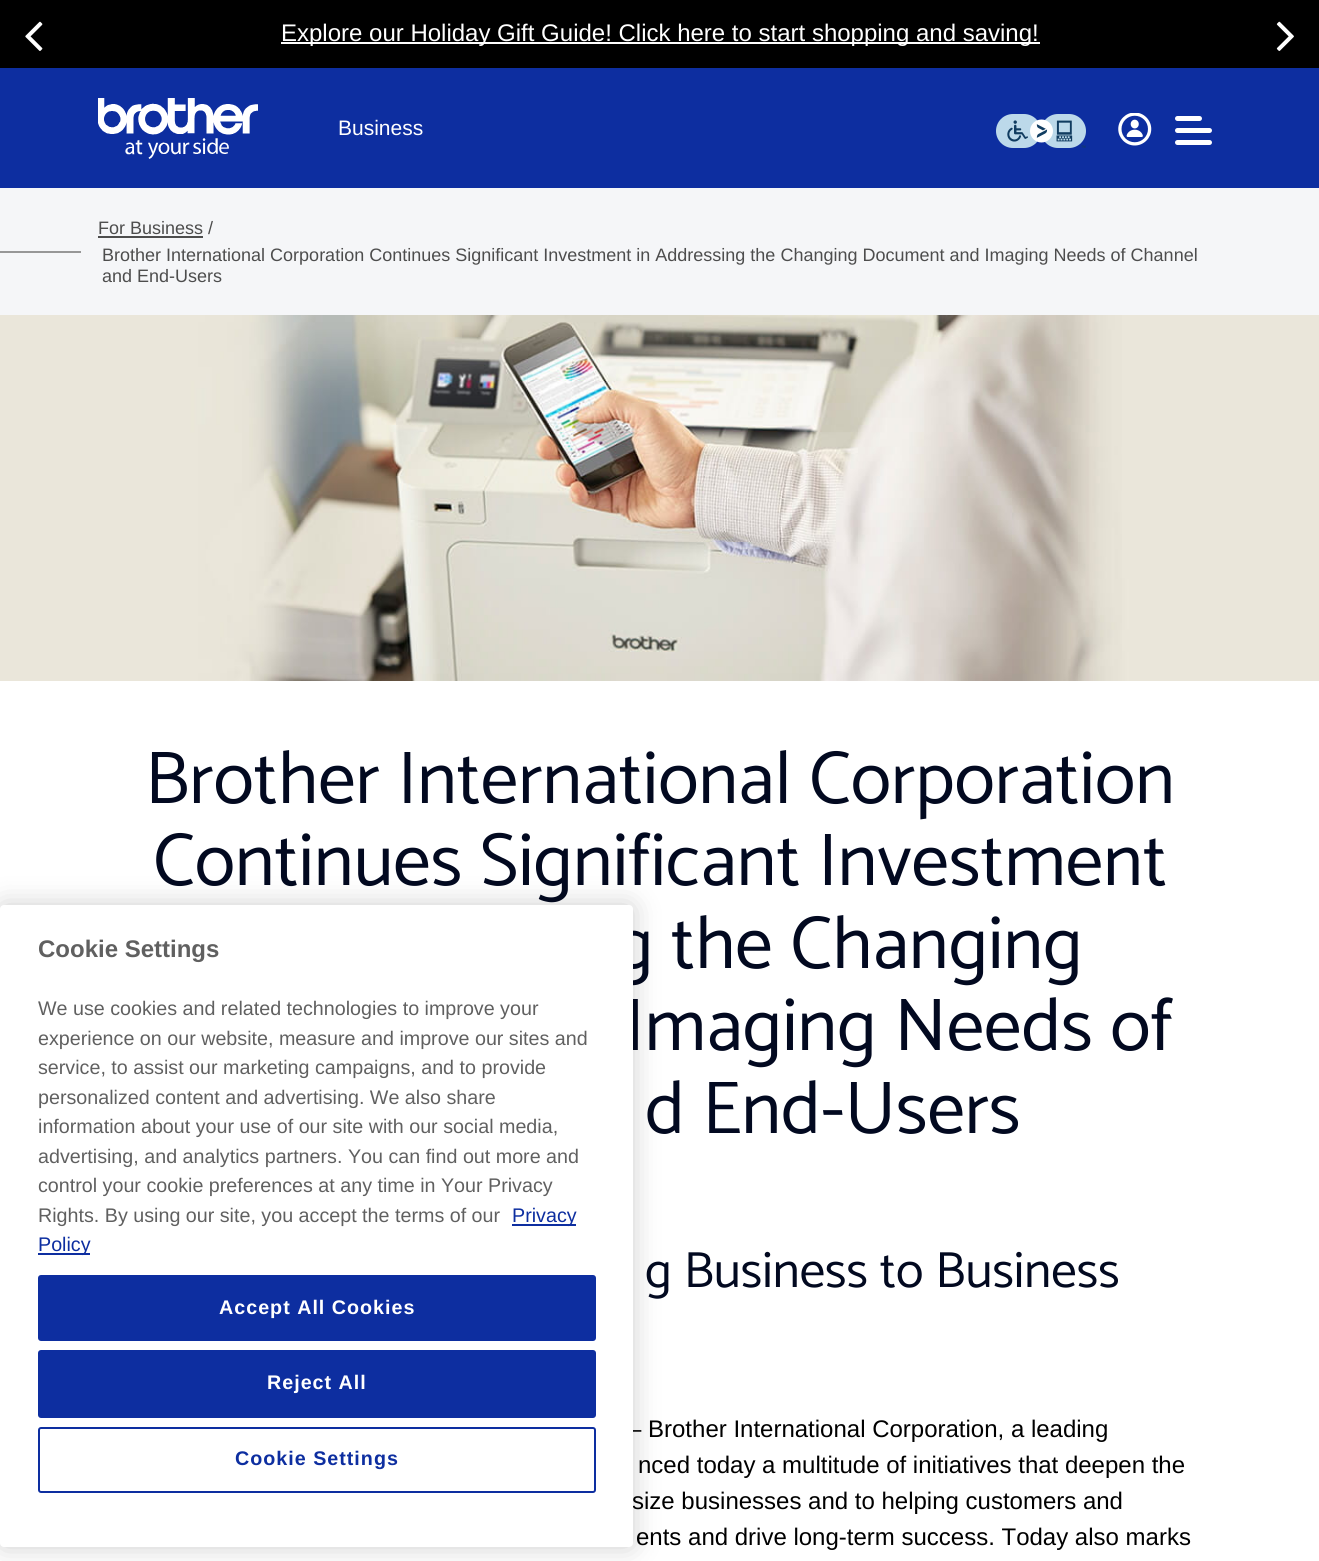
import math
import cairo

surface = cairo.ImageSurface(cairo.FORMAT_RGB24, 1319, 1561)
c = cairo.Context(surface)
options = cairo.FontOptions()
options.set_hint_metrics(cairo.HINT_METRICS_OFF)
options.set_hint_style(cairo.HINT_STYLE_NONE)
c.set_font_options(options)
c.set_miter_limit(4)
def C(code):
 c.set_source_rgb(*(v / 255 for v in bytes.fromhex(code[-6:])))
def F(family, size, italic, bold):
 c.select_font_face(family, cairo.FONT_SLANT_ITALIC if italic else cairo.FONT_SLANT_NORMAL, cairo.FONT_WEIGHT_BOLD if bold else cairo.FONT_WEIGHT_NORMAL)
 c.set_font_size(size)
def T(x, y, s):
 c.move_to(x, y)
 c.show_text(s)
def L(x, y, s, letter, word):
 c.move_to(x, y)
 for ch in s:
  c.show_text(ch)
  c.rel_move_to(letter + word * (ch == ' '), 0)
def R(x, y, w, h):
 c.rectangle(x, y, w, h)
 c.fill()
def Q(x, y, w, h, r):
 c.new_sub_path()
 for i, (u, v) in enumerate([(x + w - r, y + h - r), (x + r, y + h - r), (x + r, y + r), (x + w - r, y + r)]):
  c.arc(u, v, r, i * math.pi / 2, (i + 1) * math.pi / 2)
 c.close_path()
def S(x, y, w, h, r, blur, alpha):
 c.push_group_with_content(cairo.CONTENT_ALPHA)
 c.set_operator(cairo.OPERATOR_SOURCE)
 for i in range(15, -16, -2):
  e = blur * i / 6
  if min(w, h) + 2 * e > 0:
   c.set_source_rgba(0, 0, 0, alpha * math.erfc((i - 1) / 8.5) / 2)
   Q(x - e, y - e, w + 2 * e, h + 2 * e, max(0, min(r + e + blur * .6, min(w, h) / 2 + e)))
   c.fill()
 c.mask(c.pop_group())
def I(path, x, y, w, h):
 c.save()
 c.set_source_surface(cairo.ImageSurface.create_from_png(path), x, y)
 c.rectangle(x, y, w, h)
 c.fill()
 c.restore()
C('ffffff')
c.paint()
C('000000')
R(0,0,1319,68)
I('1.png',25,21,18,30)
C('ffffff')
R(281,42,759,2)
F('Liberation Sans',24,0,0)
T(281,41,'Explore our Holiday Gift Guide! Click here to start shopping and saving!')
I('2.png',1276,21,18,30)
C('0d2ea0')
R(0,68,1319,120)
I('3.png',98,98,160,61)
F('Liberation Sans',21,0,0)
C('ffffff')
T(338,135,'Business')
I('4.png',996,114,90,34)
I('5.png',1118,113,34,33)
Q(1175,128,37,5,2.5)
c.fill()
Q(1175,116,27,5,2.5)
c.fill()
Q(1175,140,37,5,2.5)
c.fill()
C('f5f6f8')
R(0,188,1319,127)
C('979797')
R(0,251,81,2)
F('Liberation Sans',18,0,0)
C('4d4d4d')
T(98,234,'For Business /')
R(98,236,105,2)
T(102,261,'Brother International Corporation Continues Significant Investment in Addressing the Changing Document and Imaging Needs of Channel')
T(102,282,'and End-Users')
I('6.png',0,315,1319,366)
F('Catamaran',75,0,0)
C('020920')
T(145,803,'Brother International Corporation')
T(153,885,'Continues Significant Investment')
T(614,968,'g the Changing')
T(625,1050,'Imaging Needs of')
T(645,1133,'d End-Users')
F('Catamaran',51,0,0)
T(645,1287,'g Business to Business')
F('Liberation Sans',24,0,0)
C('000000')
T(628,1437,'– Brother International Corporation, a leading')
T(638,1473,'nced today a multitude of initiatives that deepen the')
T(632,1509,'size businesses and to helping customers and')
T(636,1545,'ents and drive long-term success. Today also marks')
C('000000')
S(0,905,633,642,4,13.5,.2)
C('ffffff')
Q(0,905,633,642,4)
c.fill()
F('Liberation Sans',24,0,1)
C('606060')
T(38,957,'Cookie Settings')
F('Liberation Sans',19.7,0,0)
T(38,1015,'We use cookies and related technologies to improve your')
T(38,1045,'experience on our website, measure and improve our sites and')
T(38,1074,'service, to assist our marketing campaigns, and to provide')
T(38,1104,'personalized content and advertising. We also share')
T(38,1133,'information about your use of our site with our social media,')
T(38,1163,'advertising, and analytics partners. You can find out more and')
T(38,1192,'control your cookie preferences at any time in Your Privacy')
T(38,1222,'Rights. By using our site, you accept the terms of our')
C('0d2ea0')
R(512,1224,64,2)
T(512,1222,'Privacy')
R(38,1253,52,2)
T(38,1251,'Policy')
Q(39,1276,556,64,2)
c.fill_preserve()
c.stroke()
F('Liberation Sans',19.7,0,1)
C('ffffff')
L(219,1314,'Accept All Cookies',1,0)
C('0d2ea0')
Q(39,1351,556,66,2)
c.fill_preserve()
c.stroke()
C('ffffff')
L(267,1389,'Reject All',1,0)
Q(39,1428,556,64,2)
C('0d2ea0')
c.stroke()
L(235,1465,'Cookie Settings',1,0)
surface.write_to_png('o.png')
